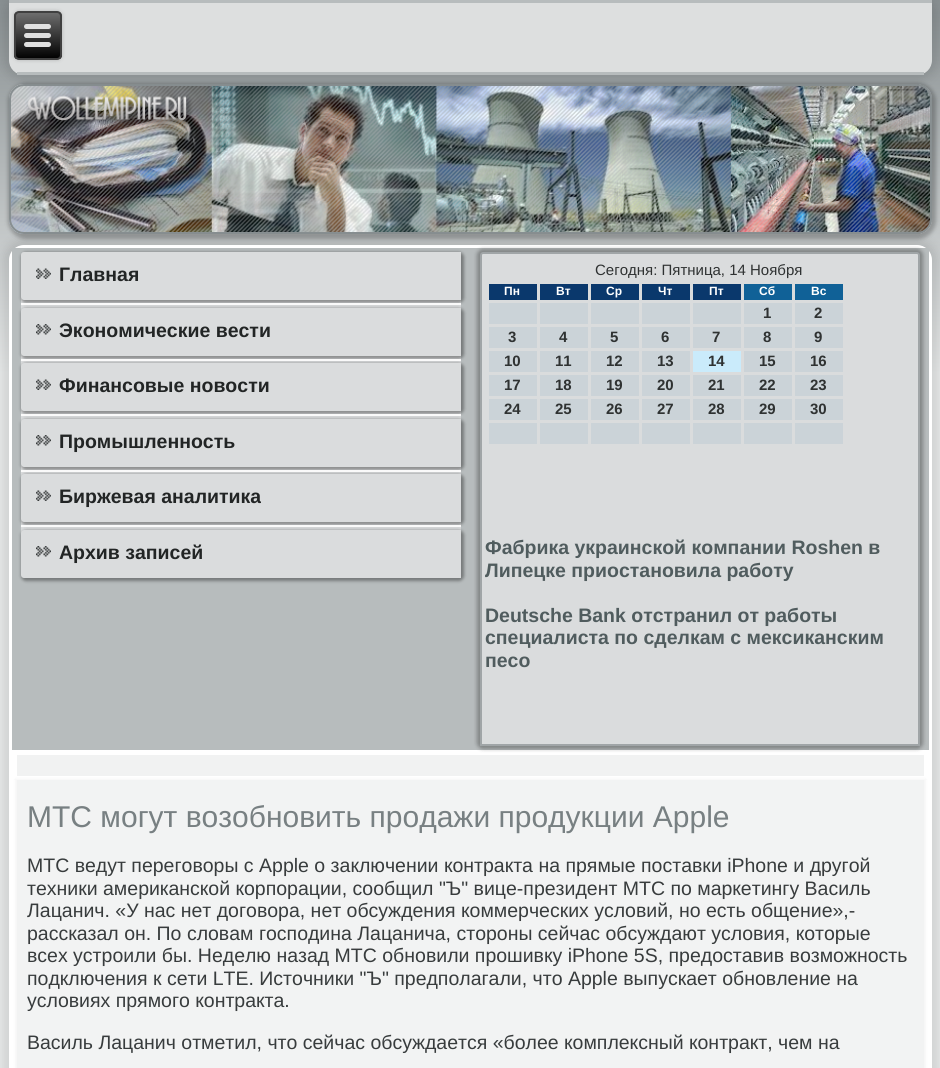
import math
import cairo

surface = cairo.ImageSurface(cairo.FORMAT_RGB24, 940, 1068)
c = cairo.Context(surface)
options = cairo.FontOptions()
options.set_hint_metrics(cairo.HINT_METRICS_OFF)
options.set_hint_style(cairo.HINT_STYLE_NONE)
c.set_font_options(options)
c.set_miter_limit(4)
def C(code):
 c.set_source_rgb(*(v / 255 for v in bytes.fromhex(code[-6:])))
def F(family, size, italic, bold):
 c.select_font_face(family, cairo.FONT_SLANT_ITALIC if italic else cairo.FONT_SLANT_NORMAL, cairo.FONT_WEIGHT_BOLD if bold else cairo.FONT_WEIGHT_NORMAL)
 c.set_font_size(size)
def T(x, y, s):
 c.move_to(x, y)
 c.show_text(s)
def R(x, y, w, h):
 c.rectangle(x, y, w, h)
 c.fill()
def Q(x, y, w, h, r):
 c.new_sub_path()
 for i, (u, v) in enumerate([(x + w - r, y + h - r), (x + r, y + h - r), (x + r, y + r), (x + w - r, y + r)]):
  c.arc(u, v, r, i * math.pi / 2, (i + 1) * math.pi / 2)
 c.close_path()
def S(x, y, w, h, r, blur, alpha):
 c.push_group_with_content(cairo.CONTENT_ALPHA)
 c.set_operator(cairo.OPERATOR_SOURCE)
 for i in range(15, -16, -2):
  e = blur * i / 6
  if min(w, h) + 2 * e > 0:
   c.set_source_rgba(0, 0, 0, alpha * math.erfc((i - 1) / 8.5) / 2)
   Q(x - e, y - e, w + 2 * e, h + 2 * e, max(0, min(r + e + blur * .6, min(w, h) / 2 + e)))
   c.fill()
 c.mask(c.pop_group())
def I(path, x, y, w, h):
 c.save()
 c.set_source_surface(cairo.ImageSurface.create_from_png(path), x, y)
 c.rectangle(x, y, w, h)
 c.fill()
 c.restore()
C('ffffff')
c.paint()
gradient = cairo.LinearGradient(470,0,470,1068)
gradient.add_color_stop_rgba(0,0.533,0.561,0.569,1)
gradient.add_color_stop_rgba(.35,0.906,0.914,0.914,1)
c.set_source(gradient)
R(0,0,940,1068)
c.save()
c.set_fill_rule(cairo.FILL_RULE_EVEN_ODD)
c.new_path()
c.move_to(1,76)
c.line_to(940,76)
c.line_to(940,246)
c.line_to(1,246)
c.close_path()
c.move_to(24,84)
c.line_to(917,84)
c.curve_to(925.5,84,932,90.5,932,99)
c.line_to(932,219)
c.curve_to(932,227.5,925.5,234,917,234)
c.line_to(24,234)
c.curve_to(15.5,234,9,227.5,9,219)
c.line_to(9,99)
c.curve_to(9,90.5,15.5,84,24,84)
c.close_path()
c.clip()
C('000000')
S(8,83,928,156,18,2,.25)
c.restore()
I('1.png',9,84,923,150)
Q(10,85,921,148,14)
C('888f91')
c.stroke()
C('000000')
S(3,-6,935,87,21,5,.1)
C('dddfdf')
c.new_path()
c.move_to(9,0)
c.line_to(932,0)
c.line_to(932,60)
c.curve_to(932,68.5,925.5,75,917,75)
c.line_to(24,75)
c.curve_to(15.5,75,9,68.5,9,60)
c.close_path()
c.fill()
C('b7bcbd')
R(9,0,923,3)
R(17,72,907,3)
C('000000')
S(14,11,48,49,5,2,.2)
c.save()
Q(14,11,48,49,5)
c.clip()
gradient = cairo.LinearGradient(37,12,38,59)
gradient.add_color_stop_rgba(0,0.439,0.439,0.439,1)
gradient.add_color_stop_rgba(1,0,0,0,1)
c.set_source(gradient)
R(14,12,48,47)
c.restore()
Q(15,12,46,47,4)
C('404040')
c.stroke()
C('e0e0e0')
Q(24,24,27,5,2.5)
c.fill()
Q(24,33,27,5,2.5)
c.fill()
Q(24,42,27,5,2.5)
c.fill()
C('000000')
S(3,239,935,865,21,5,.1)
C('ffffff')
Q(9,245,923,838,15)
c.fill()
C('b7bcbd')
R(12,248,917,502)
C('dadcdd')
Q(21,252,440,326,3)
c.fill()
C('000000')
S(21,252,443,51,5,1.5,.35)
C('dadcdd')
c.new_path()
c.move_to(24,252)
c.line_to(461,252)
c.line_to(461,300)
c.line_to(24,300)
c.curve_to(22.5,300,21,298.5,21,297)
c.line_to(21,255)
c.curve_to(21,253.5,22.5,252,24,252)
c.close_path()
c.fill()
I('2.png',36,268,15,11)
F('Liberation Sans',19.5,0,1)
C('222525')
T(59,281,'Главная')
C('000000')
S(21,308,443,51,5,1.5,.35)
C('fafafa')
R(21,303,440,2)
C('dadcdd')
c.new_path()
c.move_to(24,308)
c.line_to(461,308)
c.line_to(461,356)
c.line_to(24,356)
c.curve_to(22.5,356,21,354.5,21,353)
c.line_to(21,311)
c.curve_to(21,309.5,22.5,308,24,308)
c.close_path()
c.fill()
I('3.png',36,324,15,11)
C('222525')
T(59,337,'Экономические вести')
C('000000')
S(21,363,443,51,5,1.5,.35)
C('fafafa')
R(21,359,440,2)
C('dadcdd')
c.new_path()
c.move_to(24,363)
c.line_to(461,363)
c.line_to(461,411)
c.line_to(24,411)
c.curve_to(22.5,411,21,409.5,21,408)
c.line_to(21,366)
c.curve_to(21,364.5,22.5,363,24,363)
c.close_path()
c.fill()
I('2.png',36,379,15,11)
C('222525')
T(59,392,'Финансовые новости')
C('000000')
S(21,419,443,51,5,1.5,.35)
C('fafafa')
R(21,414,440,2)
C('dadcdd')
c.new_path()
c.move_to(24,419)
c.line_to(461,419)
c.line_to(461,467)
c.line_to(24,467)
c.curve_to(22.5,467,21,465.5,21,464)
c.line_to(21,422)
c.curve_to(21,420.5,22.5,419,24,419)
c.close_path()
c.fill()
I('3.png',36,435,15,11)
C('222525')
T(59,448,'Промышленность')
C('000000')
S(21,474,443,51,5,1.5,.35)
C('fafafa')
R(21,470,440,2)
C('dadcdd')
c.new_path()
c.move_to(24,474)
c.line_to(461,474)
c.line_to(461,522)
c.line_to(24,522)
c.curve_to(22.5,522,21,520.5,21,519)
c.line_to(21,477)
c.curve_to(21,475.5,22.5,474,24,474)
c.close_path()
c.fill()
I('2.png',36,490,15,11)
C('222525')
T(59,503,'Биржевая аналитика')
C('000000')
S(21,530,443,51,5,1.5,.35)
C('fafafa')
R(21,525,440,2)
C('dadcdd')
c.new_path()
c.move_to(24,530)
c.line_to(461,530)
c.line_to(461,578)
c.line_to(24,578)
c.curve_to(22.5,578,21,576.5,21,575)
c.line_to(21,533)
c.curve_to(21,531.5,22.5,530,24,530)
c.close_path()
c.fill()
I('3.png',36,546,15,11)
C('222525')
T(59,559,'Архив записей')
c.set_source_rgba(0.867,0.875,0.875,0.4)
R(17,755,907,21)
C('000000')
S(477,249,446,500,6,2,.3)
C('dadcdd')
c.new_path()
c.move_to(483,253)
c.line_to(917,253)
c.curve_to(918,253,919,254,919,255)
c.line_to(919,745)
c.line_to(481,745)
c.line_to(481,255)
c.curve_to(481,254,482,253,483,253)
c.close_path()
c.fill_preserve()
C('a0a5a7')
c.stroke()
F('Liberation Sans',15,0,0)
C('2f3232')
T(595,275,'Сегодня: Пятница, 14 Ноября')
C('0a386c')
R(489,284,48,16)
F('Liberation Sans',12,0,1)
C('ffffff')
T(504,295,'Пн')
C('0a386c')
R(540,284,48,16)
C('ffffff')
T(556,295,'Вт')
C('0a386c')
R(591,284,48,16)
C('ffffff')
T(606,295,'Ср')
C('0a386c')
R(642,284,48,16)
C('ffffff')
T(658,295,'Чт')
C('0a386c')
R(693,284,48,16)
C('ffffff')
T(709,295,'Пт')
C('106197')
R(744,284,48,16)
C('ffffff')
T(759,295,'Сб')
C('106197')
R(795,284,48,16)
C('ffffff')
T(811,295,'Вс')
C('cbd3d8')
R(489,303,48,21)
R(540,303,48,21)
R(591,303,48,21)
R(642,303,48,21)
R(693,303,48,21)
R(744,303,48,21)
F('Liberation Sans',15,0,1)
C('2f3232')
T(763,318,'1')
C('cbd3d8')
R(795,303,48,21)
C('2f3232')
T(814,318,'2')
C('cbd3d8')
R(489,327,48,21)
C('2f3232')
T(508,342,'3')
C('cbd3d8')
R(540,327,48,21)
C('2f3232')
T(559,342,'4')
C('cbd3d8')
R(591,327,48,21)
C('2f3232')
T(610,342,'5')
C('cbd3d8')
R(642,327,48,21)
C('2f3232')
T(661,342,'6')
C('cbd3d8')
R(693,327,48,21)
C('2f3232')
T(712,342,'7')
C('cbd3d8')
R(744,327,48,21)
C('2f3232')
T(763,342,'8')
C('cbd3d8')
R(795,327,48,21)
C('2f3232')
T(814,342,'9')
C('cbd3d8')
R(489,351,48,21)
C('2f3232')
T(504,366,'10')
C('cbd3d8')
R(540,351,48,21)
C('2f3232')
T(555,366,'11')
C('cbd3d8')
R(591,351,48,21)
C('2f3232')
T(606,366,'12')
C('cbd3d8')
R(642,351,48,21)
C('2f3232')
T(657,366,'13')
C('caebfb')
R(693,351,48,21)
C('2f3232')
T(708,366,'14')
C('cbd3d8')
R(744,351,48,21)
C('2f3232')
T(759,366,'15')
C('cbd3d8')
R(795,351,48,21)
C('2f3232')
T(810,366,'16')
C('cbd3d8')
R(489,375,48,21)
C('2f3232')
T(504,390,'17')
C('cbd3d8')
R(540,375,48,21)
C('2f3232')
T(555,390,'18')
C('cbd3d8')
R(591,375,48,21)
C('2f3232')
T(606,390,'19')
C('cbd3d8')
R(642,375,48,21)
C('2f3232')
T(657,390,'20')
C('cbd3d8')
R(693,375,48,21)
C('2f3232')
T(708,390,'21')
C('cbd3d8')
R(744,375,48,21)
C('2f3232')
T(759,390,'22')
C('cbd3d8')
R(795,375,48,21)
C('2f3232')
T(810,390,'23')
C('cbd3d8')
R(489,399,48,21)
C('2f3232')
T(504,414,'24')
C('cbd3d8')
R(540,399,48,21)
C('2f3232')
T(555,414,'25')
C('cbd3d8')
R(591,399,48,21)
C('2f3232')
T(606,414,'26')
C('cbd3d8')
R(642,399,48,21)
C('2f3232')
T(657,414,'27')
C('cbd3d8')
R(693,399,48,21)
C('2f3232')
T(708,414,'28')
C('cbd3d8')
R(744,399,48,21)
C('2f3232')
T(759,414,'29')
C('cbd3d8')
R(795,399,48,21)
C('2f3232')
T(810,414,'30')
C('cbd3d8')
R(489,423,48,21)
R(540,423,48,21)
R(591,423,48,21)
R(642,423,48,21)
R(693,423,48,21)
R(744,423,48,21)
R(795,423,48,21)
F('Liberation Sans',19.5,0,1)
C('505c5e')
T(485,554,'Фабрика украинской компании Roshen в')
T(485,577,'Липецке приостановила работу')
T(485,622,'Deutsche Bank отстранил от работы')
T(485,644,'специалиста по сделкам с мексиканским')
T(485,667,'песо')
C('000000')
S(15,779,911,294,0,1.5,.04)
C('f2f3f3')
R(17,780,907,288)
F('Liberation Sans',30,0,0)
C('788082')
T(27,827,'МТС могут возобновить продажи продукции Apple')
F('Liberation Sans',19.5,0,0)
C('383c3d')
T(27,872,'МТС ведут переговоры с Apple о заключении контракта на прямые поставки iPhone и другой')
T(27,895,'техники американской корпорации, сообщил "Ъ" вице-президент МТС по маркетингу Василь')
T(27,917,'Лацанич. «У нас нет договора, нет обсуждения коммерческих условий, но есть общение»,-')
T(27,940,'рассказал он. По словам господина Лацанича, стороны сейчас обсуждают условия, которые')
T(27,962,'всех устроили бы. Неделю назад МТС обновили прошивку iPhone 5S, предоставив возможность')
T(27,985,'подключения к сети LTE. Источники "Ъ" предполагали, что Apple выпускает обновление на')
T(27,1007,'условиях прямого контракта.')
T(27,1049,'Василь Лацанич отметил, что сейчас обсуждается «более комплексный контракт, чем на')
surface.write_to_png('o.png')
